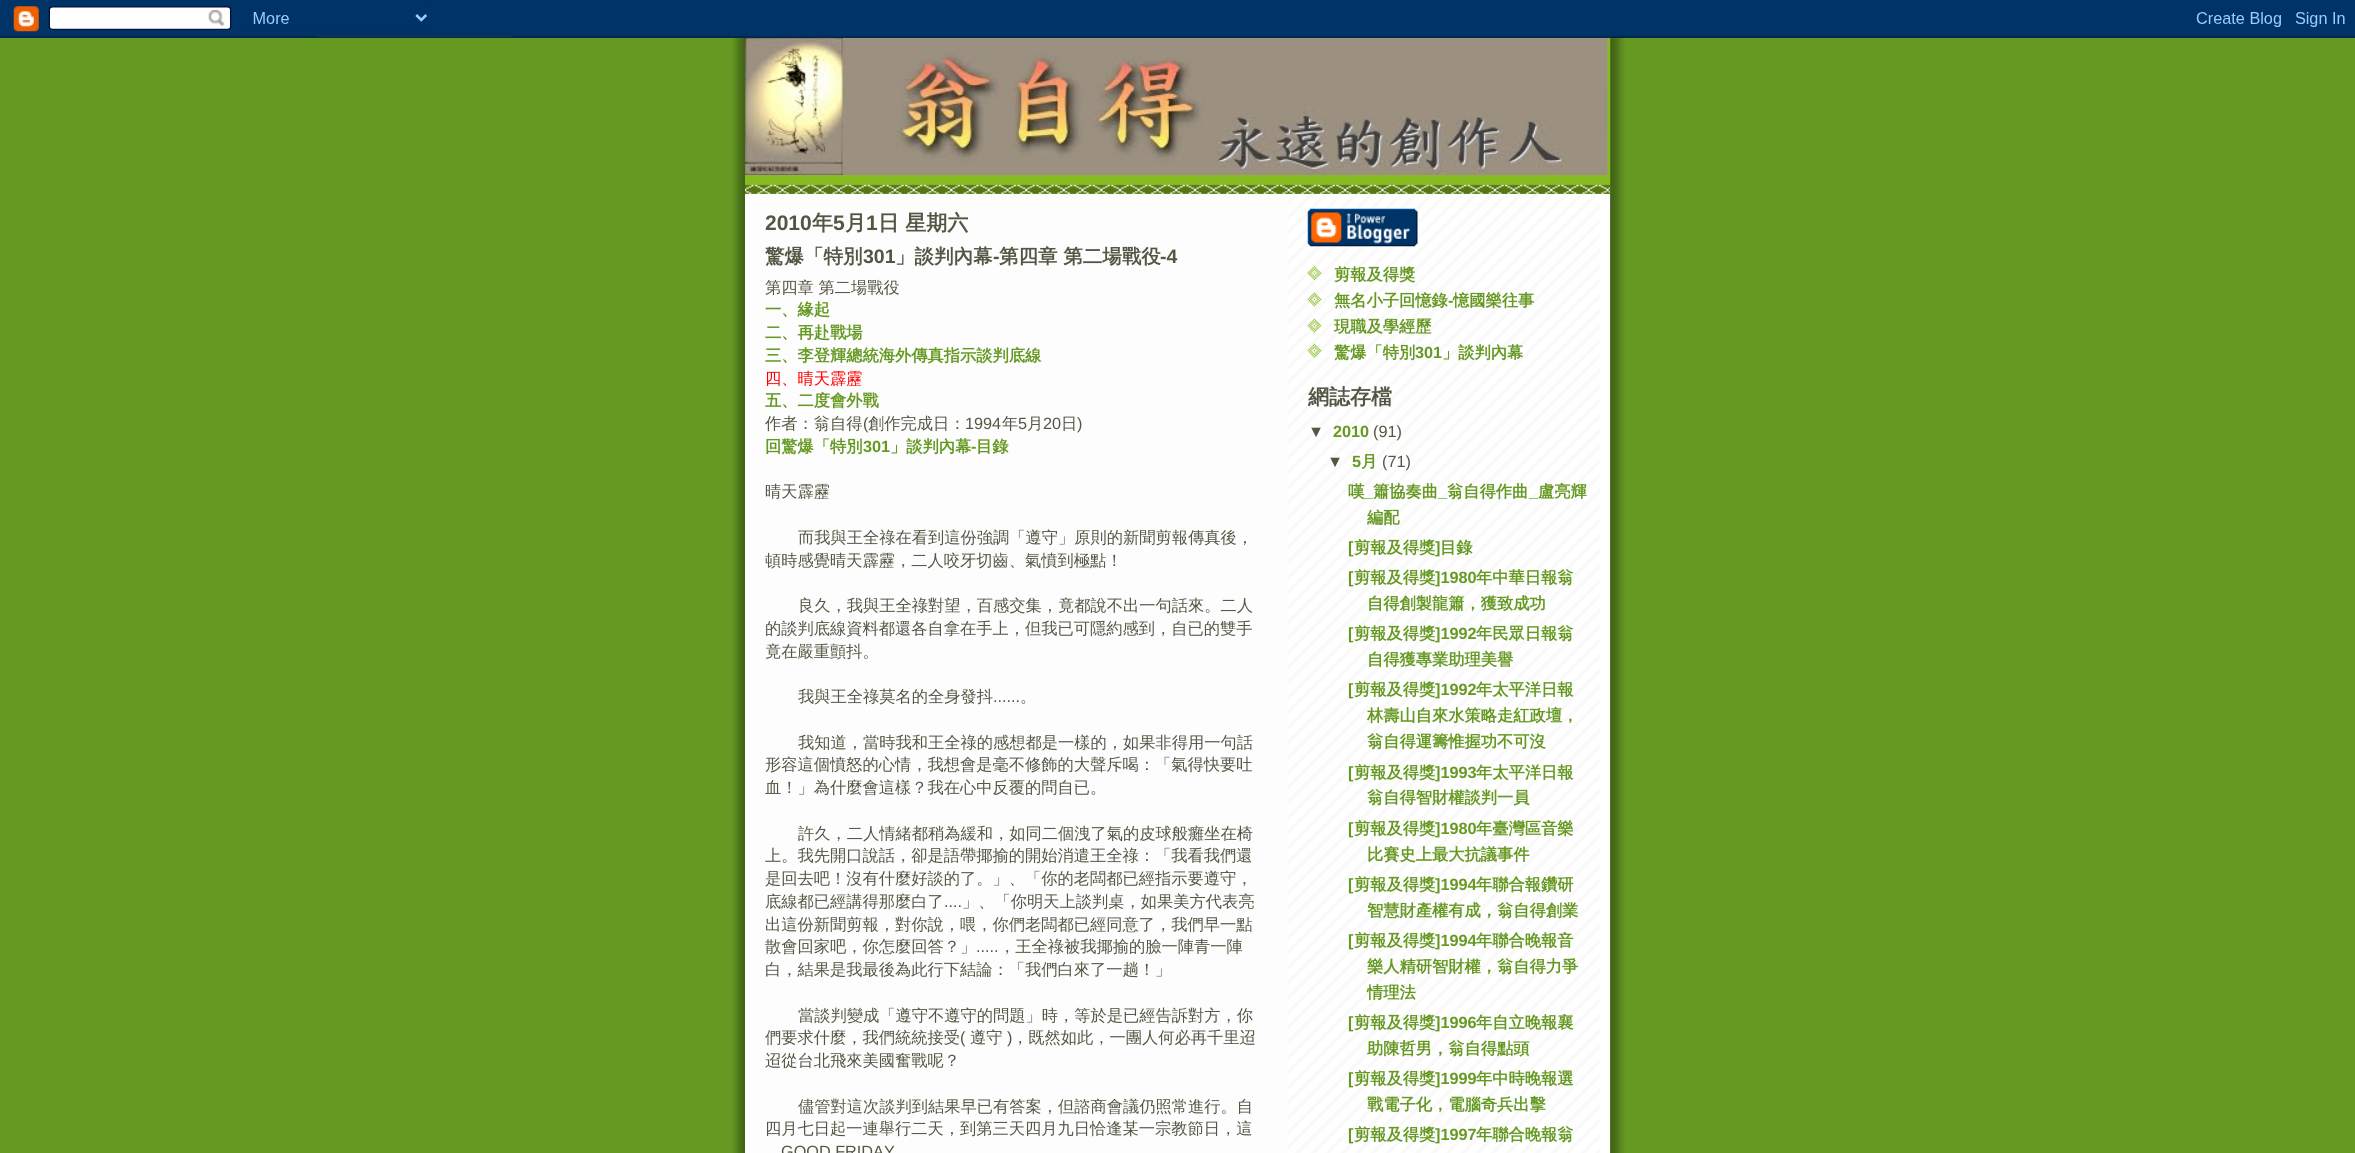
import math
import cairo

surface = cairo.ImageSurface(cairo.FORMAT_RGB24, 2355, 1153)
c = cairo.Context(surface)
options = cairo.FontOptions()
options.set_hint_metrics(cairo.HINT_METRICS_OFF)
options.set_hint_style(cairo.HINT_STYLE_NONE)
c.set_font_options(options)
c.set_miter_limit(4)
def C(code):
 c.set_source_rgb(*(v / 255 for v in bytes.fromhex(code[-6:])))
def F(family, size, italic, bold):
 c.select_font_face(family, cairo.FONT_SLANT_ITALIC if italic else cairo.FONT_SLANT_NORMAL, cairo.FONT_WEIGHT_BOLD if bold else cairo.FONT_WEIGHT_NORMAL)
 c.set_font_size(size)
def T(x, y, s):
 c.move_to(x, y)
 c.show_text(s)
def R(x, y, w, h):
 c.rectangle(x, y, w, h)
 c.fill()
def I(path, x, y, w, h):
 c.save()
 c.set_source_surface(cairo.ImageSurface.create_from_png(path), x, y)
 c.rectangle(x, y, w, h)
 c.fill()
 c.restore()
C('669922')
c.paint()
I('1.png',732,36,893,1117)
I('2.png',0,0,2355,38)
C('ffffff')
R(745,194,2,959)
I('3.png',1288,194,322,959)
C('88bb22')
R(745,38,865,156)
I('4.png',745,184,865,10)
I('5.png',745,38,863,137)
F('Liberation Sans',21,0,1)
C('555544')
T(765,230,'2010')
F('WenQuanYi Zen Hei',21,0,1)
T(812,230,'年')
F('Liberation Sans',21,0,1)
T(833,230,'5')
F('WenQuanYi Zen Hei',21,0,1)
T(845,230,'月')
F('Liberation Sans',21,0,1)
T(866,230,'1')
F('WenQuanYi Zen Hei',21,0,1)
T(878,230,'日 星期六')
F('WenQuanYi Zen Hei',19.5,0,1)
T(765,263,'驚爆「特別')
F('Liberation Sans',19.5,0,1)
T(863,263,'301')
F('WenQuanYi Zen Hei',19.5,0,1)
T(895,263,'」談判內幕')
F('Liberation Sans',19.5,0,1)
T(993,263,'-')
F('WenQuanYi Zen Hei',19.5,0,1)
T(999,263,'第四章 第二場戰役')
F('Liberation Sans',19.5,0,1)
T(1160,263,'-4')
F('WenQuanYi Zen Hei Medium',16.25,0,0)
T(765,293,'第四章 第二場戰役')
F('WenQuanYi Zen Hei',16.25,0,1)
C('669922')
T(765,315,'一、緣起')
T(765,338,'二、再赴戰場')
T(765,361,'三、李登輝總統海外傳真指示談判底線')
F('WenQuanYi Zen Hei Medium',16.25,0,0)
C('ff0000')
T(765,384,'四、晴天霹靂')
F('WenQuanYi Zen Hei',16.25,0,1)
C('669922')
T(765,406,'五、二度會外戰')
F('WenQuanYi Zen Hei Medium',16.25,0,0)
C('555544')
T(765,429,'作者：翁自得')
F('Liberation Sans',16.25,0,0)
T(863,429,'(')
F('WenQuanYi Zen Hei Medium',16.25,0,0)
T(868,429,'創作完成日：')
F('Liberation Sans',16.25,0,0)
T(965,429,'1994')
F('WenQuanYi Zen Hei Medium',16.25,0,0)
T(1002,429,'年')
F('Liberation Sans',16.25,0,0)
T(1018,429,'5')
F('WenQuanYi Zen Hei Medium',16.25,0,0)
T(1027,429,'月')
F('Liberation Sans',16.25,0,0)
T(1043,429,'20')
F('WenQuanYi Zen Hei Medium',16.25,0,0)
T(1061,429,'日')
F('Liberation Sans',16.25,0,0)
T(1077,429,')')
F('WenQuanYi Zen Hei',16.25,0,1)
C('669922')
T(765,452,'回驚爆「特別')
F('Liberation Sans',16.25,0,1)
T(863,452,'301')
F('WenQuanYi Zen Hei',16.25,0,1)
T(890,452,'」談判內幕')
F('Liberation Sans',16.25,0,1)
T(971,452,'-')
F('WenQuanYi Zen Hei',16.25,0,1)
T(976,452,'目錄')
F('WenQuanYi Zen Hei Medium',16.25,0,0)
C('555544')
T(765,497,'晴天霹靂')
T(798,543,'而我與王全祿在看到這份強調「遵守」原則的新聞剪報傳真後，')
T(765,566,'頓時感覺晴天霹靂，二人咬牙切齒、氣憤到極點！')
T(798,611,'良久，我與王全祿對望，百感交集，竟都說不出一句話來。二人')
T(765,634,'的談判底線資料都還各自拿在手上，但我已可隱約感到，自已的雙手')
T(765,657,'竟在嚴重顫抖。')
T(798,702,'我與王全祿莫名的全身發抖')
F('Liberation Sans',16.25,0,0)
T(993,702,'......')
F('WenQuanYi Zen Hei Medium',16.25,0,0)
T(1020,702,'。')
T(798,748,'我知道，當時我和王全祿的感想都是一樣的，如果非得用一句話')
T(765,770,'形容這個憤怒的心情，我想會是毫不修飾的大聲斥喝：「氣得快要吐')
T(765,793,'血！」為什麼會這樣？我在心中反覆的問自已。')
T(798,839,'許久，二人情緒都稍為緩和，如同二個洩了氣的皮球般癱坐在椅')
T(765,861,'上。我先開口說話，卻是語帶揶揄的開始消遣王全祿：「我看我們還')
T(765,884,'是回去吧！沒有什麼好談的了。」、「你的老闆都已經指示要遵守，')
T(765,907,'底線都已經講得那麼白了')
F('Liberation Sans',16.25,0,0)
T(944,907,'....')
F('WenQuanYi Zen Hei Medium',16.25,0,0)
T(962,907,'」、「你明天上談判桌，如果美方代表亮')
T(765,930,'出這份新聞剪報，對你說，喂，你們老闆都已經同意了，我們早一點')
T(765,952,'散會回家吧，你怎麼回答？」')
F('Liberation Sans',16.25,0,0)
T(976,952,'.....')
F('WenQuanYi Zen Hei Medium',16.25,0,0)
T(999,952,'，王全祿被我揶揄的臉一陣青一陣')
T(765,975,'白，結果是我最後為此行下結論：「我們白來了一趟！」')
T(798,1021,'當談判變成「遵守不遵守的問題」時，等於是已經告訴對方，你')
T(765,1043,'們要求什麼，我們統統接受')
F('Liberation Sans',16.25,0,0)
T(960,1043,'(')
F('WenQuanYi Zen Hei Medium',16.25,0,0)
T(970,1043,'遵守')
F('Liberation Sans',16.25,0,0)
T(1007,1043,')')
F('WenQuanYi Zen Hei Medium',16.25,0,0)
T(1012,1043,'，既然如此，一團人何必再千里迢')
T(765,1066,'迢從台北飛來美國奮戰呢？')
T(798,1112,'儘管對這次談判到結果早已有答案，但諮商會議仍照常進行。自')
T(765,1134,'四月七日起一連舉行二天，到第三天四月九日恰逢某一宗教節日，這')
F('Liberation Sans',16.25,0,0)
T(781,1157,'GOOD FRIDAY')
I('6.png',1307,208,111,39)
I('7.png',1307,266,15,14)
F('WenQuanYi Zen Hei',16.25,0,1)
C('669922')
T(1334,280,'剪報及得獎')
I('8.png',1307,292,15,15)
T(1334,306,'無名小子回憶錄')
F('Liberation Sans',16.25,0,1)
T(1448,306,'-')
F('WenQuanYi Zen Hei',16.25,0,1)
T(1453,306,'憶國樂往事')
I('9.png',1307,318,15,15)
T(1334,332,'現職及學經歷')
I('10.png',1307,343,15,15)
T(1334,358,'驚爆「特別')
F('Liberation Sans',16.25,0,1)
T(1415,358,'301')
F('WenQuanYi Zen Hei',16.25,0,1)
T(1442,358,'」談判內幕')
c.save()
c.rectangle(1308,194,282,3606)
c.clip()
F('WenQuanYi Zen Hei',21,0,1)
C('555544')
T(1308,404,'網誌存檔')
c.restore()
F('Liberation Sans',16.25,0,1)
C('555544')
T(1308,437,'▼')
C('669922')
T(1333,437,'2010')
F('Liberation Sans',16.25,0,0)
C('555544')
T(1373,437,'(91)')
F('Liberation Sans',16.25,0,1)
T(1327,467,'▼')
C('669922')
T(1352,467,'5')
F('WenQuanYi Zen Hei',16.25,0,1)
T(1361,467,'月')
F('Liberation Sans',16.25,0,0)
C('555544')
T(1382,467,'(71)')
F('WenQuanYi Zen Hei',16.25,0,1)
C('669922')
T(1348,497,'嘆')
F('Liberation Sans',16.25,0,1)
T(1364,497,'_')
F('WenQuanYi Zen Hei',16.25,0,1)
T(1373,497,'簫協奏曲')
F('Liberation Sans',16.25,0,1)
T(1438,497,'_')
F('WenQuanYi Zen Hei',16.25,0,1)
T(1447,497,'翁自得作曲')
F('Liberation Sans',16.25,0,1)
T(1529,497,'_')
F('WenQuanYi Zen Hei',16.25,0,1)
T(1538,497,'盧亮輝')
T(1367,523,'編配')
F('Liberation Sans',16.25,0,1)
T(1348,553,'[')
F('WenQuanYi Zen Hei',16.25,0,1)
T(1354,553,'剪報及得獎')
F('Liberation Sans',16.25,0,1)
T(1435,553,']')
F('WenQuanYi Zen Hei',16.25,0,1)
T(1440,553,'目錄')
F('Liberation Sans',16.25,0,1)
T(1348,583,'[')
F('WenQuanYi Zen Hei',16.25,0,1)
T(1354,583,'剪報及得獎')
F('Liberation Sans',16.25,0,1)
T(1435,583,']1980')
F('WenQuanYi Zen Hei',16.25,0,1)
T(1476,583,'年中華日報翁')
T(1367,609,'自得創製龍簫，獲致成功')
F('Liberation Sans',16.25,0,1)
T(1348,639,'[')
F('WenQuanYi Zen Hei',16.25,0,1)
T(1354,639,'剪報及得獎')
F('Liberation Sans',16.25,0,1)
T(1435,639,']1992')
F('WenQuanYi Zen Hei',16.25,0,1)
T(1476,639,'年民眾日報翁')
T(1367,665,'自得獲專業助理美譽')
F('Liberation Sans',16.25,0,1)
T(1348,695,'[')
F('WenQuanYi Zen Hei',16.25,0,1)
T(1354,695,'剪報及得獎')
F('Liberation Sans',16.25,0,1)
T(1435,695,']1992')
F('WenQuanYi Zen Hei',16.25,0,1)
T(1476,695,'年太平洋日報')
T(1367,721,'林壽山自來水策略走紅政壇，')
T(1367,747,'翁自得運籌惟握功不可沒')
F('Liberation Sans',16.25,0,1)
T(1348,778,'[')
F('WenQuanYi Zen Hei',16.25,0,1)
T(1354,778,'剪報及得獎')
F('Liberation Sans',16.25,0,1)
T(1435,778,']1993')
F('WenQuanYi Zen Hei',16.25,0,1)
T(1476,778,'年太平洋日報')
T(1367,803,'翁自得智財權談判一員')
F('Liberation Sans',16.25,0,1)
T(1348,834,'[')
F('WenQuanYi Zen Hei',16.25,0,1)
T(1354,834,'剪報及得獎')
F('Liberation Sans',16.25,0,1)
T(1435,834,']1980')
F('WenQuanYi Zen Hei',16.25,0,1)
T(1476,834,'年臺灣區音樂')
T(1367,860,'比賽史上最大抗議事件')
F('Liberation Sans',16.25,0,1)
T(1348,890,'[')
F('WenQuanYi Zen Hei',16.25,0,1)
T(1354,890,'剪報及得獎')
F('Liberation Sans',16.25,0,1)
T(1435,890,']1994')
F('WenQuanYi Zen Hei',16.25,0,1)
T(1476,890,'年聯合報鑽研')
T(1367,916,'智慧財產權有成，翁自得創業')
F('Liberation Sans',16.25,0,1)
T(1348,946,'[')
F('WenQuanYi Zen Hei',16.25,0,1)
T(1354,946,'剪報及得獎')
F('Liberation Sans',16.25,0,1)
T(1435,946,']1994')
F('WenQuanYi Zen Hei',16.25,0,1)
T(1476,946,'年聯合晚報音')
T(1367,972,'樂人精研智財權，翁自得力爭')
T(1367,998,'情理法')
F('Liberation Sans',16.25,0,1)
T(1348,1028,'[')
F('WenQuanYi Zen Hei',16.25,0,1)
T(1354,1028,'剪報及得獎')
F('Liberation Sans',16.25,0,1)
T(1435,1028,']1996')
F('WenQuanYi Zen Hei',16.25,0,1)
T(1476,1028,'年自立晚報襄')
T(1367,1054,'助陳哲男，翁自得點頭')
F('Liberation Sans',16.25,0,1)
T(1348,1084,'[')
F('WenQuanYi Zen Hei',16.25,0,1)
T(1354,1084,'剪報及得獎')
F('Liberation Sans',16.25,0,1)
T(1435,1084,']1999')
F('WenQuanYi Zen Hei',16.25,0,1)
T(1476,1084,'年中時晚報選')
T(1367,1110,'戰電子化，電腦奇兵出擊')
F('Liberation Sans',16.25,0,1)
T(1348,1140,'[')
F('WenQuanYi Zen Hei',16.25,0,1)
T(1354,1140,'剪報及得獎')
F('Liberation Sans',16.25,0,1)
T(1435,1140,']1997')
F('WenQuanYi Zen Hei',16.25,0,1)
T(1476,1140,'年聯合晚報翁')
surface.write_to_png('o.png')
